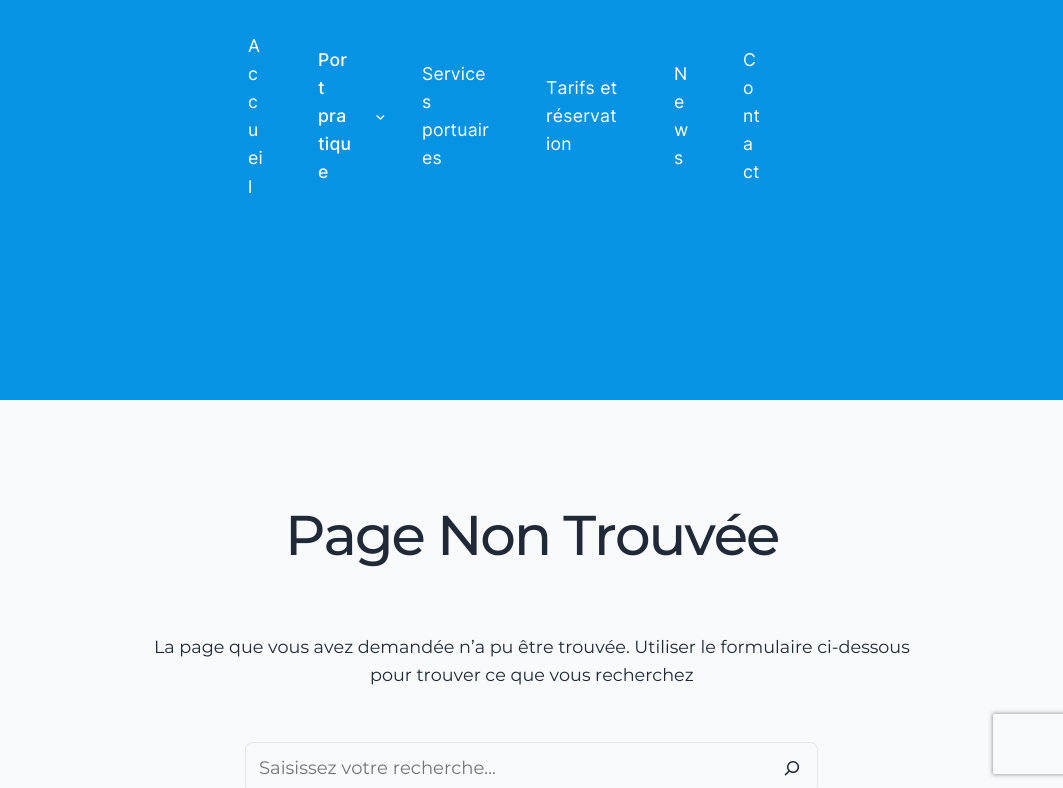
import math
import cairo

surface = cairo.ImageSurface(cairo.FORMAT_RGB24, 1063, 788)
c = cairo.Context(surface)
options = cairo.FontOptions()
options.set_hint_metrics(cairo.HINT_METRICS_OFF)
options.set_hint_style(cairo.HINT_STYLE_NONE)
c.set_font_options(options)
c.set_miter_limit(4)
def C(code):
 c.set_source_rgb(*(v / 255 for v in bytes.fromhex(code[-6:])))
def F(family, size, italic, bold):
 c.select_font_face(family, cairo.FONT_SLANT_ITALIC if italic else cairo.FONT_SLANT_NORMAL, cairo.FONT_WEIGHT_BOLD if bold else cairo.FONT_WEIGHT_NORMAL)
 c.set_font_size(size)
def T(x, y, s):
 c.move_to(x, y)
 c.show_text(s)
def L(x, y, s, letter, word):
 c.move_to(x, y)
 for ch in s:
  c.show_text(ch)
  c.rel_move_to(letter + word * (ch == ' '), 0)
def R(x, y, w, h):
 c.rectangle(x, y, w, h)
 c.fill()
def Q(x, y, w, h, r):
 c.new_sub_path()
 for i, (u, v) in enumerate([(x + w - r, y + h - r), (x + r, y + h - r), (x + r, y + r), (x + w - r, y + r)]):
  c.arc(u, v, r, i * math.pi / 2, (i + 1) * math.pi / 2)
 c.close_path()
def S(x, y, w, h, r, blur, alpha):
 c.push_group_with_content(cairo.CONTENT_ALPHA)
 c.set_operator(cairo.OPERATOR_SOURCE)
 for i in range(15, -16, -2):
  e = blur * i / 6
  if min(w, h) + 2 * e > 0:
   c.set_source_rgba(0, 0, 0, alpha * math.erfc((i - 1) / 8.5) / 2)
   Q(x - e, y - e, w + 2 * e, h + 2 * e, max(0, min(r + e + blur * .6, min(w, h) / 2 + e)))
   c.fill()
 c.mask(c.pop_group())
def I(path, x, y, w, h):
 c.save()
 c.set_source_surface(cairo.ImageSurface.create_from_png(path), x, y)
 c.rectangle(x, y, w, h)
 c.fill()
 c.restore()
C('f8fafc')
c.paint()
C('0693e3')
R(0,0,1063,400)
F('Inter',17.6,0,0)
C('ffffff')
L(248,52,'A',.25,0)
L(248,80,'c',.25,0)
L(248,108,'c',.25,0)
L(248,136,'u',.25,0)
L(248,164,'ei',.25,0)
L(248,193,'l',.25,0)
F('Inter Medium',17.6,0,0)
L(318,66,'Por',.25,0)
L(318,94,'t',.25,0)
L(318,122,'pra',.25,0)
L(318,150,'tiqu',.25,0)
L(318,178,'e',.25,0)
c.new_path()
c.move_to(376.5,115.5)
c.line_to(380.5,119)
c.line_to(384,115.5)
c.set_line_width(1.3)
c.stroke()
F('Inter',17.6,0,0)
L(422,80,'Service',.25,0)
L(422,108,'s',.25,0)
L(422,136,'portuair',.25,0)
L(422,164,'es',.25,0)
L(546,94,'Tarifs et',.25,0)
L(546,122,'réservat',.25,0)
L(546,150,'ion',.25,0)
L(674,80,'N',.25,0)
L(674,108,'e',.25,0)
L(674,136,'w',.25,0)
L(674,164,'s',.25,0)
L(743,66,'C',.25,0)
L(743,94,'o',.25,0)
L(743,122,'nt',.25,0)
L(743,150,'a',.25,0)
L(743,178,'ct',.25,0)
F('Montserrat Medium',56,0,0)
C('1f2937')
L(285,555,'Page Non Trouvée',-2,0)
F('Montserrat',17.6,0,0)
T(154,653,'La page que vous avez demandée n’a pu être trouvée. Utiliser le formulaire ci-dessous')
T(370,681,'pour trouver ce que vous recherchez')
Q(245.5,742.5,572,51,7.5)
C('e5e7eb')
c.set_line_width(1)
c.stroke()
F('Montserrat',18,0,0)
C('757575')
T(259,774,'Saisissez votre recherche...')
I('1.png',784,761,16,15)
c.save()
c.set_fill_rule(cairo.FILL_RULE_EVEN_ODD)
c.new_path()
c.move_to(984,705)
c.line_to(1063,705)
c.line_to(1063,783)
c.line_to(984,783)
c.close_path()
c.move_to(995,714)
c.line_to(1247,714)
c.curve_to(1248,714,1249,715,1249,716)
c.line_to(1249,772)
c.curve_to(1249,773,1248,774,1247,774)
c.line_to(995,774)
c.curve_to(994,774,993,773,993,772)
c.line_to(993,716)
c.curve_to(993,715,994,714,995,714)
c.close_path()
c.clip()
C('808080')
S(993,714,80,60,2,2.5,1)
c.restore()
surface.write_to_png('o.png')
